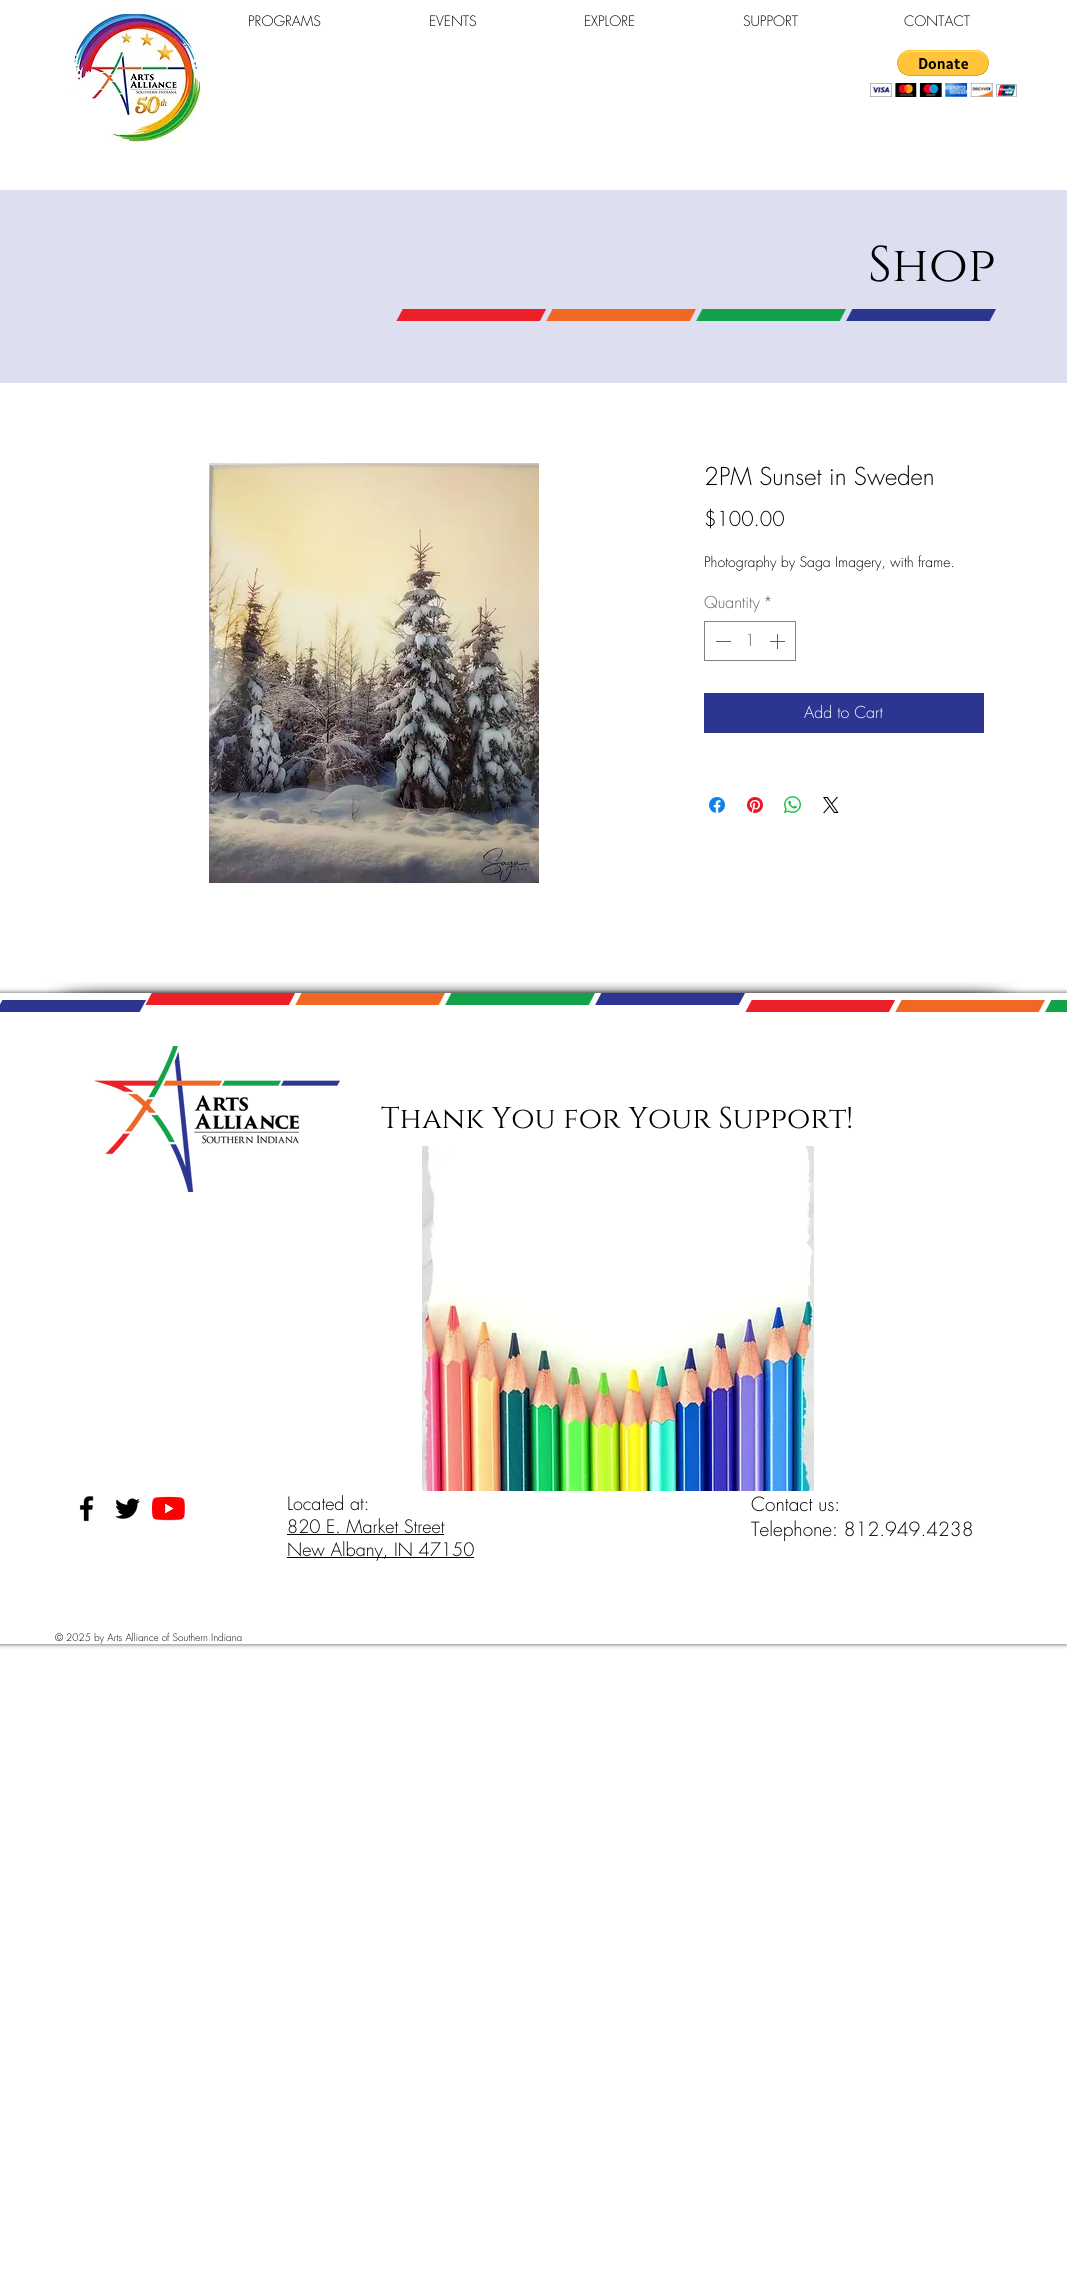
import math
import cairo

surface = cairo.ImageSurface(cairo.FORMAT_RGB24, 1067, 2280)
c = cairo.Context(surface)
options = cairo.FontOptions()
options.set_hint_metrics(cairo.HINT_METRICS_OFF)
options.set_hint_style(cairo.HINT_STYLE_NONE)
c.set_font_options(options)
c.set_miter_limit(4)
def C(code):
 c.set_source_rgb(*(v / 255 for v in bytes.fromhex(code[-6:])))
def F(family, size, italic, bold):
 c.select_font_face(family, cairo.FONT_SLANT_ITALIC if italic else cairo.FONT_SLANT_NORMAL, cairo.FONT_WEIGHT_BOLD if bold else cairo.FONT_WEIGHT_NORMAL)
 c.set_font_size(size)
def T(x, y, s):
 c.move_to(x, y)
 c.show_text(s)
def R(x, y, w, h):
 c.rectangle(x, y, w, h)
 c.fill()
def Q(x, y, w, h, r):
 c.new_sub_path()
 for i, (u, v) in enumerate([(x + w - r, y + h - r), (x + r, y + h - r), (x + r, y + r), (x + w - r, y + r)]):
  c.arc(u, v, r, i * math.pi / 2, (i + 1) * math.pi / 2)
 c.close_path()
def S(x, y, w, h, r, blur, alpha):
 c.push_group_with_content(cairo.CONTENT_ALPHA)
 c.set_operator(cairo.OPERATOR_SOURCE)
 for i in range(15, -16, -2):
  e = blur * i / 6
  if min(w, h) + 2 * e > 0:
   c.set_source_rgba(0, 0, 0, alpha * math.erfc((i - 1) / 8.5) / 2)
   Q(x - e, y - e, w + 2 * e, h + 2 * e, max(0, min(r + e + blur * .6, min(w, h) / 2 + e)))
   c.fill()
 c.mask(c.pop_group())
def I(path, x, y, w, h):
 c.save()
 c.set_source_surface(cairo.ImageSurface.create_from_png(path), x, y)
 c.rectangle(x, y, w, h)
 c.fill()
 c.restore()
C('ffffff')
c.paint()
I('1.png',68,14,136,129)
F('futura Light',14,0,0)
C('000000')
T(248,26,'PROGRAMS')
T(429,26,'EVENTS')
T(584,26,'EXPLORE')
T(743,26,'SUPPORT')
T(904,26,'CONTACT')
I('2.png',870,50,147,47)
C('dddff1')
R(0,190,1067,193)
F('Cinzel',50,0,0)
C('000000')
T(868,281,'Shop')
I('3.png',396,309,600,12)
I('4.png',209,463,330,420)
F('futura Light',24,0,0)
T(704,485,'2PM Sunset in Sweden')
F('futura Light',20,0,0)
T(704,526,'$100.00')
F('futura Light',14,0,0)
T(704,567,'Photography by Saga Imagery, with frame.')
F('futura Light',16,0,0)
C('605e5e')
T(704,608,'Quantity')
T(763,608,'*')
c.rectangle(704.5,621.5,91,39)
C('828282')
c.set_line_width(1)
c.stroke()
C('605e5e')
R(716,641,15,1)
T(745,646,'1')
I('5.png',770,634,15,15)
C('2c3691')
R(704,693,280,40)
C('ffffff')
T(804,718,'Add to Cart')
I('6.png',709,797,16,16)
I('7.png',747,797,16,16)
I('8.png',784,796,17,17)
I('9.png',823,797,16,16)
c.save()
c.set_fill_rule(cairo.FILL_RULE_EVEN_ODD)
c.new_path()
c.move_to(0,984)
c.line_to(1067,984)
c.line_to(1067,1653)
c.line_to(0,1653)
c.close_path()
c.move_to(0,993)
c.line_to(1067,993)
c.line_to(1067,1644)
c.line_to(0,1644)
c.close_path()
c.clip()
C('000000')
S(0,993,1067,651,0,2.5,.7)
c.restore()
I('10.png',47,982,97,11)
I('11.png',144,982,780,11)
I('12.png',924,982,97,11)
I('13.png',0,1000,146,12)
I('14.png',145,993,600,12)
I('15.png',745,1000,322,12)
I('16.png',94,1046,246,146)
F('Cinzel',30,0,0)
C('000000')
T(381,1128,'Thank You for Your Support!')
I('17.png',422,1146,392,345)
I('18.png',79,1496,15,26)
I('19.png',115,1498,25,21)
I('20.png',152,1496,33,25)
F('futura Light',18,0,0)
T(287,1510,'Located at:')
T(287,1533,'820 E. Market Street')
R(287,1534,157,1)
R(287,1557,187,1)
T(287,1556,'New Albany, IN 47150')
F('futura Light',19,0,0)
T(751,1511,'Contact us:')
T(751,1536,'Telephone: 812.949.4238')
F('futura Light',10,0,0)
T(55,1641,'© 2025 by Arts Alliance of Southern Indiana')
surface.write_to_png('o.png')
